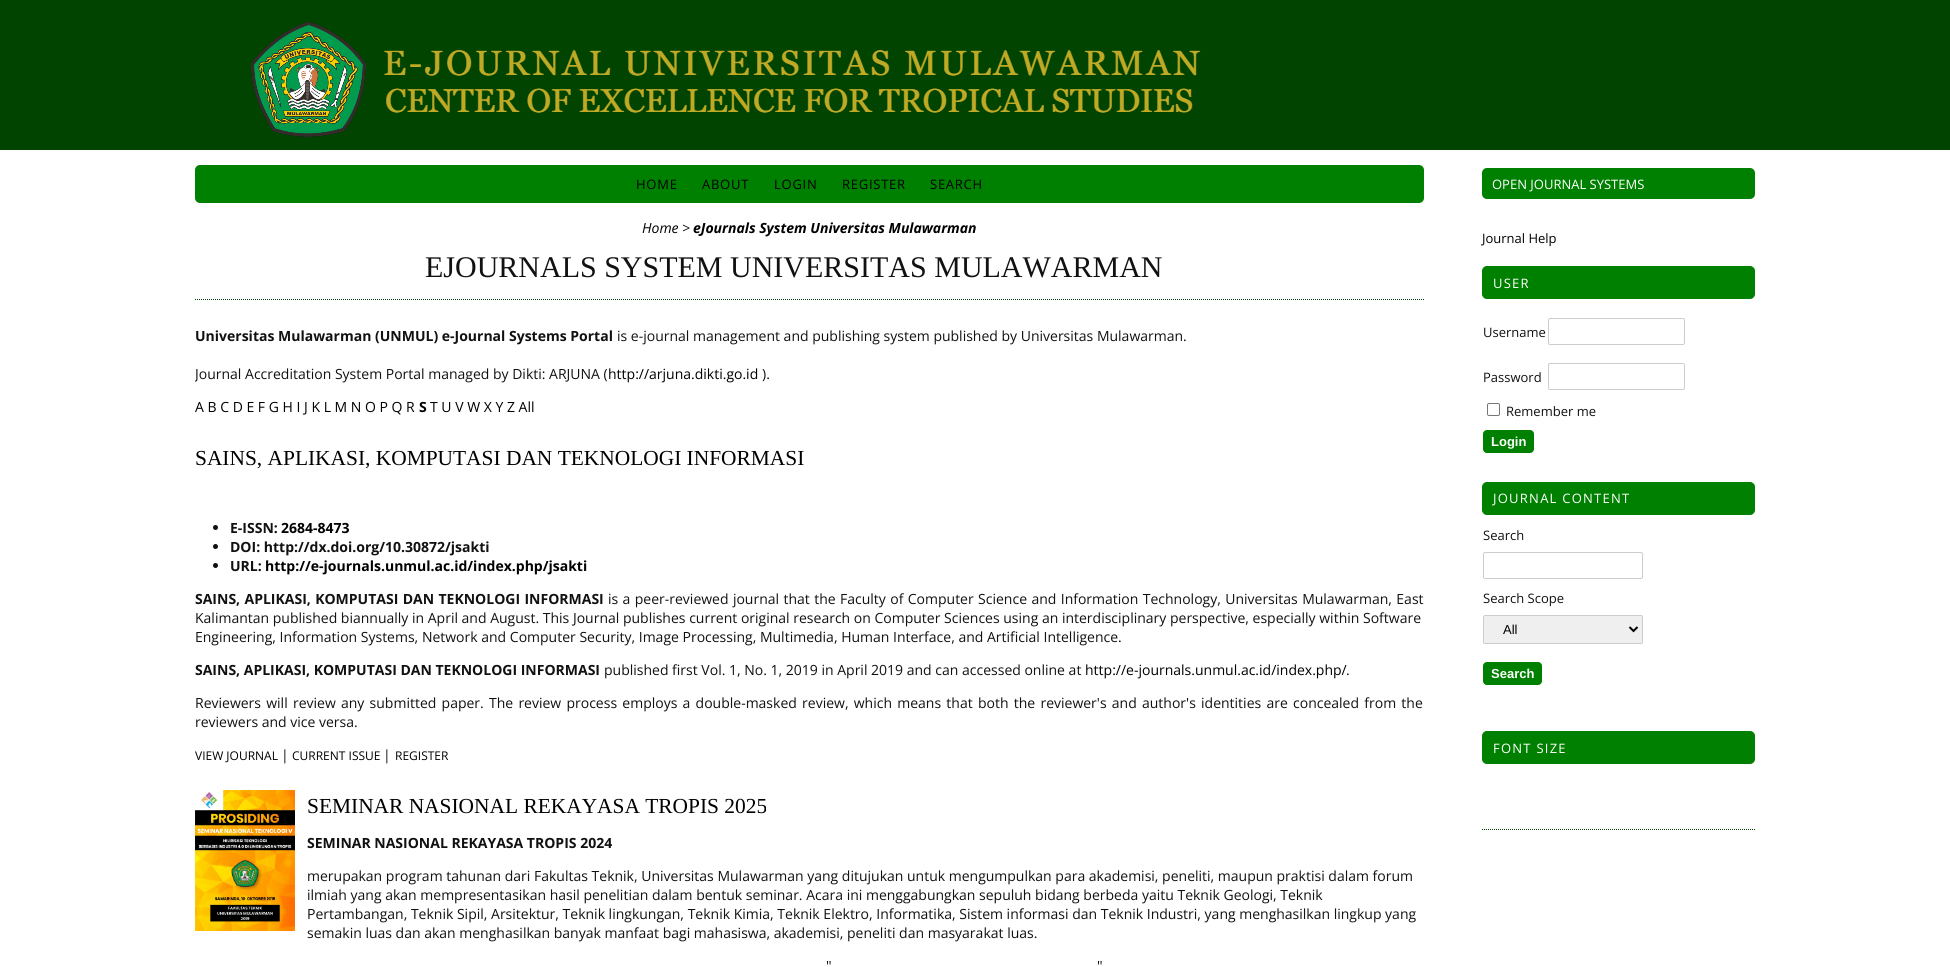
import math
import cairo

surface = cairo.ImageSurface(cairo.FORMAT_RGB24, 1950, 967)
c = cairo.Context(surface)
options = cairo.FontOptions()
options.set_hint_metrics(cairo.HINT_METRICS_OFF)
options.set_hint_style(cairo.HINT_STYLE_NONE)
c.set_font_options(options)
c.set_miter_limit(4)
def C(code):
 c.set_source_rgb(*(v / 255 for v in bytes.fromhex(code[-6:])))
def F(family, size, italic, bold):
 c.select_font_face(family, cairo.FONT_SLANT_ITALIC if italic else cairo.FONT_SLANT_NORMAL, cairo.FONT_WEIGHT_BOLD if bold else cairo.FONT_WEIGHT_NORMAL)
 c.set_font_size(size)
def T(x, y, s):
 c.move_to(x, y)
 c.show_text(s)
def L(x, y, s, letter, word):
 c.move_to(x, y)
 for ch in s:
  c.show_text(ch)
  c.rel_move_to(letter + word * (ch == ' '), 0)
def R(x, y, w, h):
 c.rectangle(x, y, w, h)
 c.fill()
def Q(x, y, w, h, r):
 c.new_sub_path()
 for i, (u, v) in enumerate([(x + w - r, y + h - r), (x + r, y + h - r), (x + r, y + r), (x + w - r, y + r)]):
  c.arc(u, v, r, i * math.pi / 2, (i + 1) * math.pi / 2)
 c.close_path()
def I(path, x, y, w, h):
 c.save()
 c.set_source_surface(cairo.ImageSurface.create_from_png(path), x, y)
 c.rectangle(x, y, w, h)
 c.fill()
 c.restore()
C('ffffff')
c.paint()
C('004400')
R(0,0,1950,150)
I('1.png',251,21,950,116)
C('008000')
Q(195,165,1229,38,5)
c.fill()
F('Open Sans',13,0,0)
C('000000')
L(636,189,'HOME',.75,0)
L(702,189,'ABOUT',.75,0)
L(774,189,'LOGIN',.75,0)
L(842,189,'REGISTER',.75,0)
L(930,189,'SEARCH',.75,0)
F('Open Sans',14,1,0)
T(642,233,'Home')
C('111111')
T(682,233,'>')
F('Open Sans',14,1,1)
C('000000')
T(693,233,'eJournals System Universitas Mulawarman')
F('Liberation Serif',30,0,0)
C('111111')
T(425,277,'EJOURNALS SYSTEM UNIVERSITAS MULAWARMAN')
c.new_path()
c.move_to(195,299.5)
c.line_to(1424,299.5)
C('004400')
c.set_line_width(1)
c.set_dash([1,1])
c.stroke()
F('Open Sans',14,0,1)
C('111111')
T(195,341,'Universitas Mulawarman (UNMUL) e-Journal Systems Portal')
F('Open Sans',14,0,0)
T(617,341,'is e-journal management and publishing system published by Universitas Mulawarman.')
c.save()
c.rectangle(195,155,1229,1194)
c.clip()
T(195,379,'Journal Accreditation System Portal managed by Dikti: ARJUNA (')
c.restore()
C('000000')
T(608,379,'http://arjuna.dikti.go.id')
C('111111')
T(762,379,').')
C('000000')
T(195,412,'A B C D E F G H I J K L M N O P Q R')
F('Open Sans',14,0,1)
T(419,412,'S')
F('Open Sans',14,0,0)
T(430,412,'T U V W X Y Z All')
F('Liberation Serif',21.4,0,0)
T(195,465,'SAINS, APLIKASI, KOMPUTASI DAN TEKNOLOGI INFORMASI')
C('111111')
c.new_path()
c.arc(215.5,527.5,2.5,0,2 * math.pi)
c.fill()
F('Open Sans',14,0,1)
T(230,533,'E-ISSN:')
C('000000')
T(281,533,'2684-8473')
C('111111')
c.new_path()
c.arc(215.5,546.5,2.5,0,2 * math.pi)
c.fill()
T(230,552,'DOI: http://dx.doi.org/10.30872/jsakti')
c.new_path()
c.arc(215.5,565.5,2.5,0,2 * math.pi)
c.fill()
T(230,571,'URL:')
C('000000')
T(265,571,'http://e-journals.unmul.ac.id/index.php/jsakti')
C('111111')
L(195,604,'SAINS, APLIKASI, KOMPUTASI DAN TEKNOLOGI INFORMASI',0,.75)
F('Open Sans',14,0,0)
L(608,604,'is a peer-reviewed journal that the Faculty of Computer Science and Information Technology, Universitas Mulawarman, East',0,.75)
T(195,623,'Kalimantan published biannually in April and August. This Journal publishes current original research on Computer Sciences using an interdisciplinary perspective, especially within Software')
T(195,642,'Engineering, Information Systems, Network and Computer Security, Image Processing, Multimedia, Human Interface, and Artificial Intelligence.')
F('Open Sans',14,0,1)
T(195,675,'SAINS, APLIKASI, KOMPUTASI DAN TEKNOLOGI INFORMASI')
F('Open Sans',14,0,0)
T(604,675,'published first Vol. 1, No. 1, 2019 in April 2019 and can accessed online at')
C('000000')
T(1085,675,'http://e-journals.unmul.ac.id/index.php/')
C('111111')
T(1346,675,'.')
L(195,708,'Reviewers will review any submitted paper. The review process employs a double-masked review, which means that both the reviewer\'s and author\'s identities are concealed from the',0,1.6)
T(195,727,'reviewers and vice versa.')
F('Open Sans',12,0,0)
C('000000')
T(195,760,'VIEW JOURNAL')
F('Open Sans',14,0,0)
C('111111')
T(281,760,'|')
F('Open Sans',12,0,0)
C('000000')
T(292,760,'CURRENT ISSUE')
F('Open Sans',14,0,0)
C('111111')
T(383,760,'|')
F('Open Sans',12,0,0)
C('000000')
T(395,760,'REGISTER')
I('2.png',195,790,100,141)
F('Liberation Serif',21.4,0,0)
T(307,813,'SEMINAR NASIONAL REKAYASA TROPIS 2025')
F('Open Sans',14,0,1)
C('111111')
T(307,848,'SEMINAR NASIONAL REKAYASA TROPIS 2024')
F('Open Sans',14,0,0)
T(307,881,'merupakan program tahunan dari Fakultas Teknik, Universitas Mulawarman yang ditujukan untuk mengumpulkan para akademisi, peneliti, maupun praktisi dalam forum')
T(307,900,'ilmiah yang akan mempresentasikan hasil penelitian dalam bentuk seminar. Acara ini menggabungkan sepuluh bidang berbeda yaitu Teknik Geologi, Teknik')
T(307,919,'Pertambangan, Teknik Sipil, Arsitektur, Teknik lingkungan, Teknik Kimia, Teknik Elektro, Informatika, Sistem informasi dan Teknik Industri, yang menghasilkan lingkup yang')
T(307,938,'semakin luas dan akan menghasilkan banyak manfaat bagi mahasiswa, akademisi, peneliti dan masyarakat luas.')
T(826,971,'"')
T(1097,971,'"')
c.new_path()
c.move_to(1482,829.5)
c.line_to(1755,829.5)
C('004400')
c.stroke()
C('008000')
Q(1482,168,273,31,5)
c.fill()
F('Open Sans',13,0,0)
C('ffffff')
T(1492,189,'OPEN JOURNAL SYSTEMS')
C('000000')
T(1482,243,'Journal Help')
C('008000')
Q(1482.5,266.5,272,32,4.5)
c.fill_preserve()
c.set_dash([])
c.stroke()
C('ffffff')
L(1493,288,'USER',1.25,0)
C('111111')
T(1483,337,'Username')
Q(1548.5,318.5,136,26,1.5)
C('cccccc')
c.stroke()
C('111111')
T(1483,382,'Password')
Q(1548.5,363.5,136,26,1.5)
C('cccccc')
c.stroke()
Q(1487.5,403.5,12,12,1.5)
C('767676')
c.stroke()
C('111111')
T(1506,416,'Remember me')
C('008000')
Q(1483.5,430.5,50,22,3.5)
c.fill_preserve()
c.stroke()
F('Liberation Sans',13,0,1)
C('ffffff')
T(1491,446,'Login')
C('008000')
Q(1482.5,482.5,272,32,4.5)
c.fill_preserve()
c.stroke()
F('Open Sans',13,0,0)
C('ffffff')
L(1493,503,'JOURNAL CONTENT',1.25,0)
C('111111')
T(1483,540,'Search')
Q(1483.5,552.5,159,26,1.5)
C('cccccc')
c.stroke()
C('111111')
T(1483,603,'Search Scope')
C('efefef')
Q(1483.5,615.5,159,28,1.5)
c.fill_preserve()
C('cccccc')
c.stroke()
c.new_path()
c.move_to(1629.5,627)
c.line_to(1633.5,631)
c.line_to(1637.5,627)
C('000000')
c.set_line_width(2)
c.stroke()
F('Liberation Sans',13,0,0)
T(1503,634,'All')
C('008000')
Q(1483.5,662.5,58,22,3.5)
c.fill_preserve()
c.set_line_width(1)
c.stroke()
F('Liberation Sans',13,0,1)
C('ffffff')
T(1491,678,'Search')
C('008000')
Q(1482.5,731.5,272,32,4.5)
c.fill_preserve()
c.stroke()
F('Open Sans',13,0,0)
C('ffffff')
L(1493,753,'FONT SIZE',1.25,0)
surface.write_to_png('o.png')
